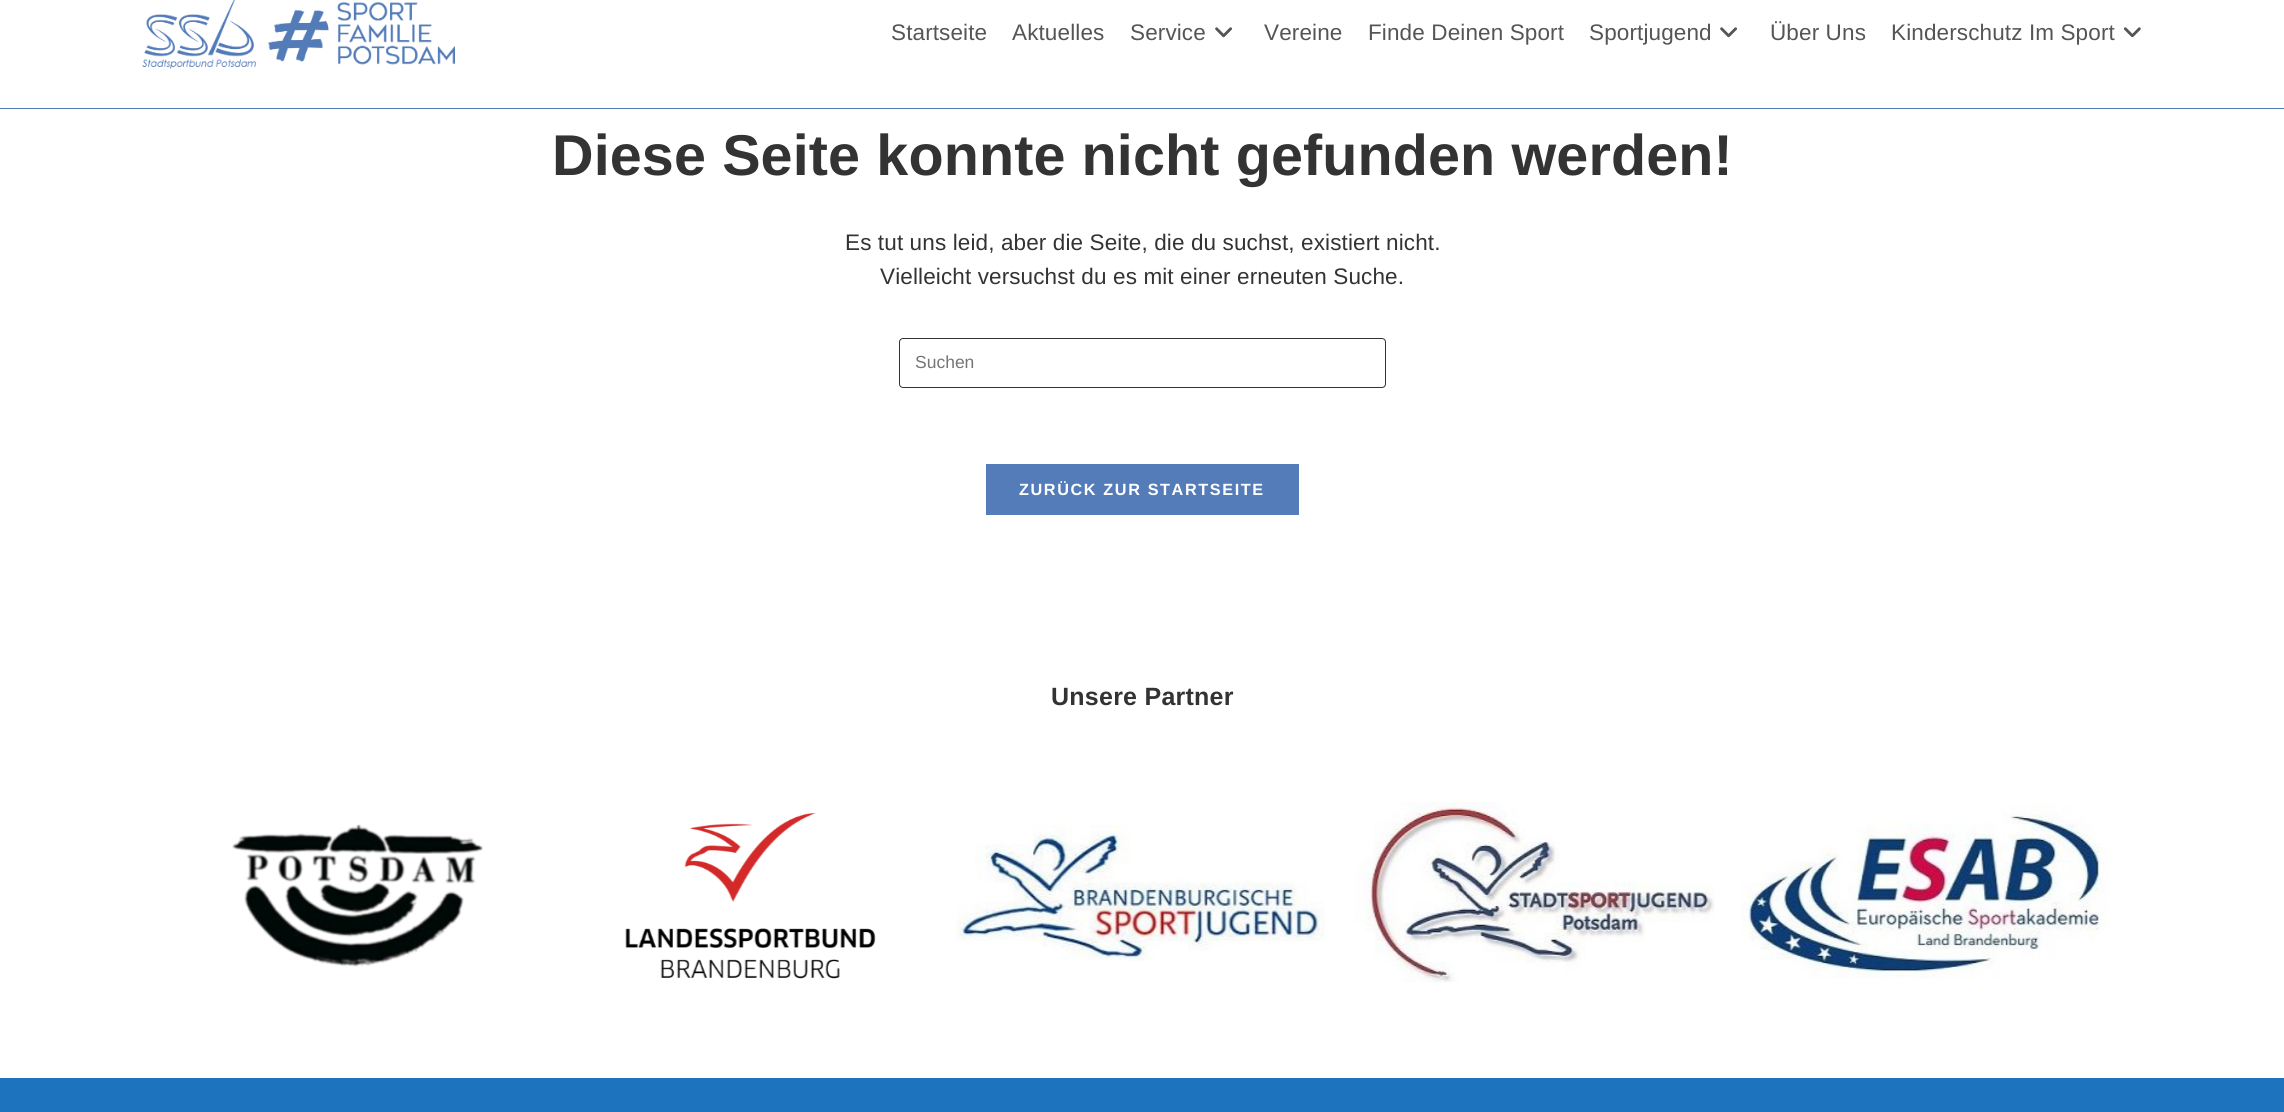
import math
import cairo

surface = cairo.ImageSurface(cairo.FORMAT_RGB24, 2284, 1112)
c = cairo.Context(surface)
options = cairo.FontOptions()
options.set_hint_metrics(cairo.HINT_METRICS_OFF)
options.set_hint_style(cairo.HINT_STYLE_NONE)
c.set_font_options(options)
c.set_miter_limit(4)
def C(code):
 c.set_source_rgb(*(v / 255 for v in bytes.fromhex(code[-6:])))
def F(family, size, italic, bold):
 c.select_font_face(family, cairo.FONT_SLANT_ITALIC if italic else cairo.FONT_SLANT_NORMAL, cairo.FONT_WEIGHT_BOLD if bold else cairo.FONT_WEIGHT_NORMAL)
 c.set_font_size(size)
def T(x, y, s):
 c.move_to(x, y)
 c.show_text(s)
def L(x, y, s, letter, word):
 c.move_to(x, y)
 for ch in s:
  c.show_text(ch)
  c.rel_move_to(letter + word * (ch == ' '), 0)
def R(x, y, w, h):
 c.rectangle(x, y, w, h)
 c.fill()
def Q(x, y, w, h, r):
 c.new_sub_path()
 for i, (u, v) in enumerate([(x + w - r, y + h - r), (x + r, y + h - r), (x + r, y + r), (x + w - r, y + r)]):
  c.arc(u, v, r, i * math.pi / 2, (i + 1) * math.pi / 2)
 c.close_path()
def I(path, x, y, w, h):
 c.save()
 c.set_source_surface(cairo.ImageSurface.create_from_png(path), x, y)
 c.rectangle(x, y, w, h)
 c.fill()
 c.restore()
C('ffffff')
c.paint()
C('527bb8')
R(0,108,2284,1)
I('1.png',142,0,313,69)
F('Liberation Sans',22.5,0,0)
C('555555')
L(891,40,'Startseite',.12,0)
L(1012,40,'Aktuelles',.12,0)
L(1130,40,'Service',.12,0)
I('2.png',1215,27,17,11)
L(1264,40,'Vereine',.12,0)
L(1368,40,'Finde Deinen Sport',.12,0)
L(1589,40,'Sportjugend',.12,0)
I('2.png',1720,27,17,11)
L(1770,40,'Über Uns',.12,0)
L(1891,40,'Kinderschutz Im Sport',.12,0)
I('3.png',2123,27,18,11)
F('Liberation Sans',57.5,0,1)
C('333333')
L(552,175,'Diese Seite konnte nicht gefunden werden!',.12,0)
F('Liberation Sans',22.5,0,0)
L(845,250,'Es tut uns leid, aber die Seite, die du suchst, existiert nicht.',.12,0)
L(880,284,'Vielleicht versuchst du es mit einer erneuten Suche.',.12,0)
Q(899.5,338.5,486,49,3.5)
c.set_line_width(1)
c.stroke()
F('Liberation Sans',17.5,0,0)
C('757575')
T(915,368,'Suchen')
C('547cb9')
R(986,464,313,51)
F('Liberation Sans',16.25,0,1)
C('ffffff')
L(1019,495,'ZURÜCK ZUR STARTSEITE',1.6,0)
F('Liberation Sans',25,0,1)
C('333333')
L(1051,705,'Unsere Partner',.25,0)
I('4.png',232,824,251,143)
I('5.png',625,813,251,166)
I('6.png',956,825,369,136)
I('7.png',1355,802,360,181)
I('8.png',1741,805,368,174)
C('1e73be')
R(0,1078,2284,34)
surface.write_to_png('o.png')
